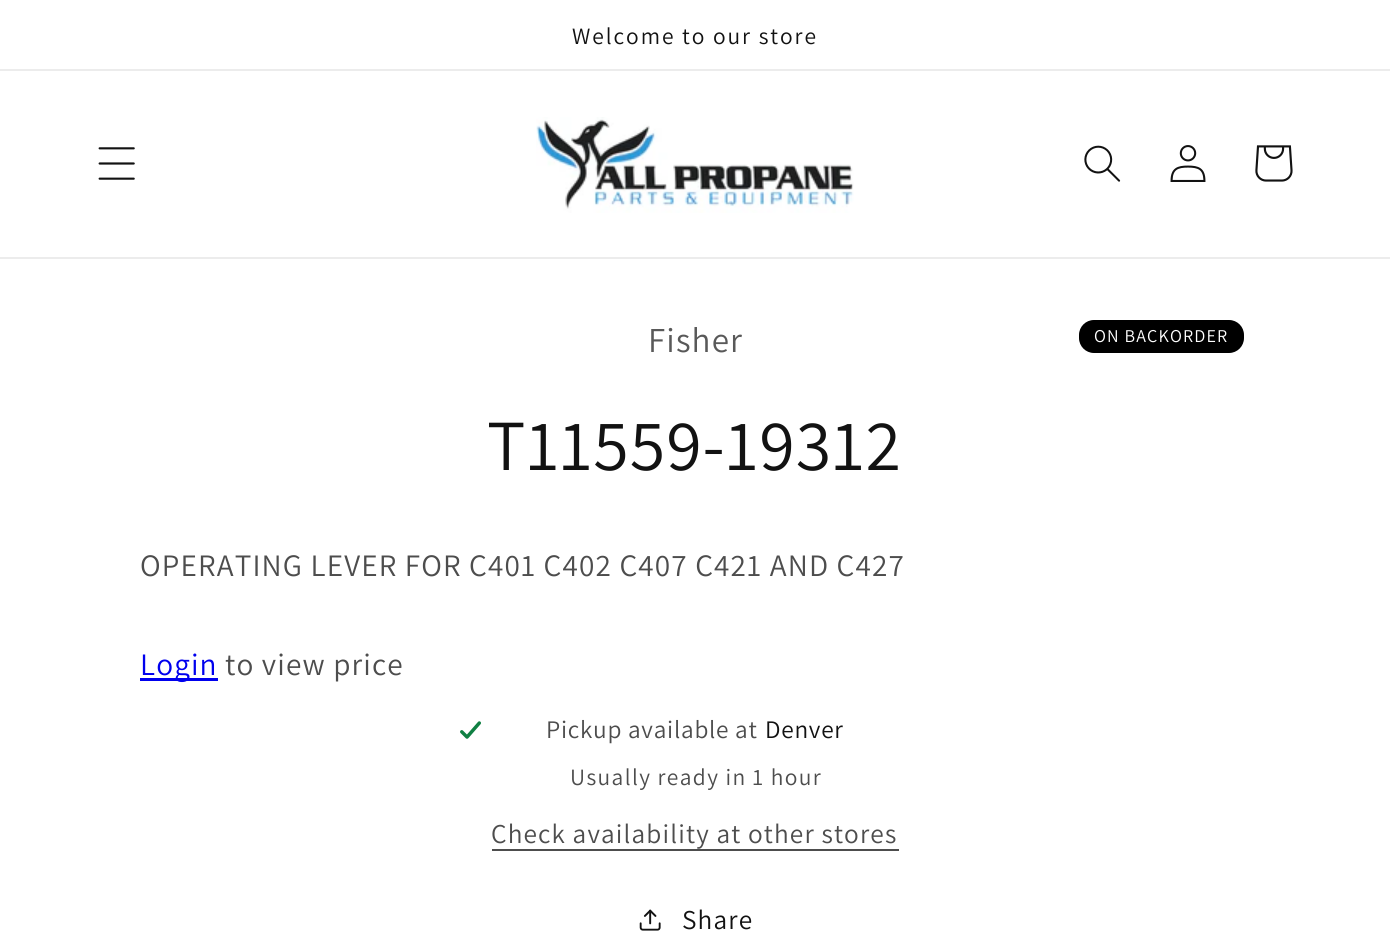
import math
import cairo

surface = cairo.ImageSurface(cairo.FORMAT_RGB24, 1390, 946)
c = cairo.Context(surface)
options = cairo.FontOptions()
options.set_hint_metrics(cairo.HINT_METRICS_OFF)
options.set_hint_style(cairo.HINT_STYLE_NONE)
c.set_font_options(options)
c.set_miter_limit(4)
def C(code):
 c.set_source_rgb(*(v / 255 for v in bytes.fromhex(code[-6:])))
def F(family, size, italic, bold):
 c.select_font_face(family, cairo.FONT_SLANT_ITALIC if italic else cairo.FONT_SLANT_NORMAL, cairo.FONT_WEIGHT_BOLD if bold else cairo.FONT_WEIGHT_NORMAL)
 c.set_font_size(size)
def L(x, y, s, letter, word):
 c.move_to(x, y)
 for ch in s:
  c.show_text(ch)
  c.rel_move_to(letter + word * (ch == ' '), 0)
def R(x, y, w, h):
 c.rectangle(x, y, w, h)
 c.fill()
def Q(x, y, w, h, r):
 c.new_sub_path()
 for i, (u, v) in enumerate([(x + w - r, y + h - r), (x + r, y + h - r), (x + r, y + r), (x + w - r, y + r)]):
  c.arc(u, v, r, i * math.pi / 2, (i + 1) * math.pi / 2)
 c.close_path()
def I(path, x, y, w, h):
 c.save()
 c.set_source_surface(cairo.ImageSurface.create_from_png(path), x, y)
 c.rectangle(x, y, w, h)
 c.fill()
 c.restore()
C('ffffff')
c.paint()
C('ececec')
R(0,69,1390,2)
F('Assistant',23.4,0,0)
C('121212')
L(572,44,'Welcome to our store',1.95,0)
C('ececec')
R(0,257,1390,2)
I('1.png',98,147,37,33)
I('2.png',536,117,318,96)
I('3.png',1084,145,37,37)
I('4.png',1170,145,36,37)
I('5.png',1255,145,38,37)
F('Assistant',35,0,0)
C('595959')
L(648,352,'Fisher',1.15,0)
F('Assistant',72,0,0)
C('121212')
L(487,470,'T11559-19312',1,0)
F('Assistant',31.2,0,0)
C('4d4d4d')
L(140,576,'OPERATING LEVER FOR C401 C402 C407 C421 AND C427',1.15,0)
C('0000ee')
R(140,678,78,3)
L(140,675,'Login',1.15,0)
C('4d4d4d')
L(225,675,'to view price',1.15,0)
I('6.png',460,721,21,18)
F('Assistant',25.25,0,0)
L(546,738,'Pickup available at',.75,0)
C('121212')
L(765,738,'Denver',.75,0)
F('Assistant',23.4,0,0)
C('4d4d4d')
L(570,785,'Usually ready in 1 hour',1.4,0)
F('Assistant',27.25,0,0)
L(491,843,'Check availability at other stores',1.15,0)
R(492,849,407,2)
I('7.png',639,909,22,22)
C('121212')
L(682,929,'Share',1.15,0)
C('000000')
Q(1079,320,165,33,15)
c.fill()
F('Assistant',18,0,0)
C('ffffff')
L(1094,342,'ON BACKORDER',1.15,0)
surface.write_to_png('o.png')
